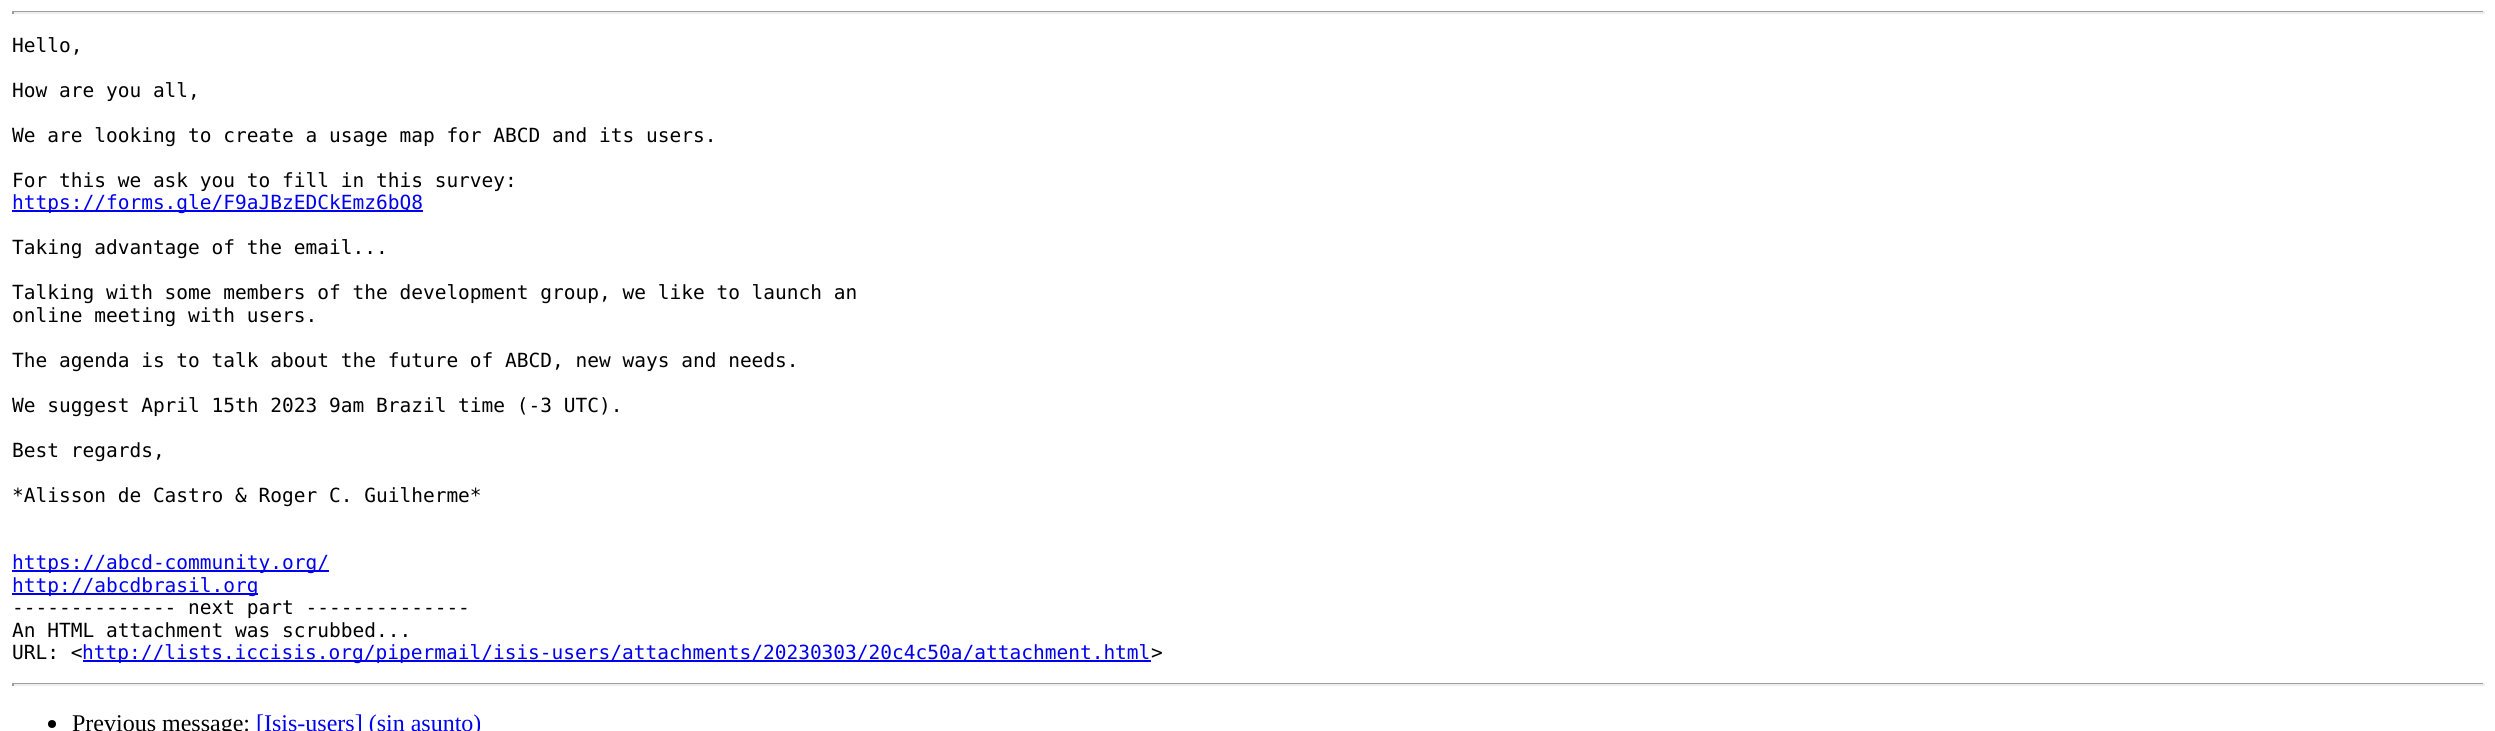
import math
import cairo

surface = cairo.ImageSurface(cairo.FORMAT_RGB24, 2495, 731)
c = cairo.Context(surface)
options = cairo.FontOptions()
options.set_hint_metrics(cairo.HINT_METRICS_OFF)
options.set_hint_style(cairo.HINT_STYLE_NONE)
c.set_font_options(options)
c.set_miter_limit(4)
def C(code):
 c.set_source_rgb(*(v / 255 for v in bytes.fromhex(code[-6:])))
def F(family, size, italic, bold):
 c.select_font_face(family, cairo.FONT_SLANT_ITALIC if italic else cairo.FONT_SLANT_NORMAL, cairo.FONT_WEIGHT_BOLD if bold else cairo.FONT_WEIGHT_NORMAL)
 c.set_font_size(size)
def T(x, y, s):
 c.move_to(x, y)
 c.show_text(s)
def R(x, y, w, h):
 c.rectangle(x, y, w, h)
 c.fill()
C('ffffff')
c.paint()
C('9f9f9f')
R(12,11,2472,1)
C('eeeeee')
R(2483,11,2,3)
R(12,12,2472,2)
C('9f9f9f')
R(12,11,2,3)
F('DejaVu Sans Mono',19.5,0,0)
C('000000')
T(12,52,'Hello,')
T(12,97,'How are you all,')
T(12,142,'We are looking to create a usage map for ABCD and its users.')
T(12,187,'For this we ask you to fill in this survey:')
C('0000ee')
R(12,210,411,2)
T(12,209,'https://forms.gle/F9aJBzEDCkEmz6bQ8')
C('000000')
T(12,254,'Taking advantage of the email...')
T(12,299,'Talking with some members of the development group, we like to launch an')
T(12,322,'online meeting with users.')
T(12,367,'The agenda is to talk about the future of ABCD, new ways and needs.')
T(12,412,'We suggest April 15th 2023 9am Brazil time (-3 UTC).')
T(12,457,'Best regards,')
T(12,502,'*Alisson de Castro & Roger C. Guilherme*')
C('0000ee')
R(12,570,317,2)
T(12,569,'https://abcd-community.org/')
R(12,593,246,2)
T(12,592,'http://abcdbrasil.org')
C('000000')
T(12,614,'-------------- next part --------------')
T(12,637,'An HTML attachment was scrubbed...')
T(12,659,'URL: <')
C('0000ee')
R(83,660,1068,2)
T(82,659,'http://lists.iccisis.org/pipermail/isis-users/attachments/20230303/20c4c50a/attachment.html')
C('000000')
T(1151,659,'>')
C('9f9f9f')
R(12,683,2472,1)
C('eeeeee')
R(2483,683,2,3)
R(12,684,2472,2)
C('9f9f9f')
R(12,683,2,3)
C('000000')
c.new_path()
c.arc(52,724,4,0,2 * math.pi)
c.fill()
F('Liberation Serif',24,0,0)
T(72,731,'Previous message:')
C('0000ee')
T(256,731,'[Isis-users] (sin asunto)')
surface.write_to_png('o.png')
